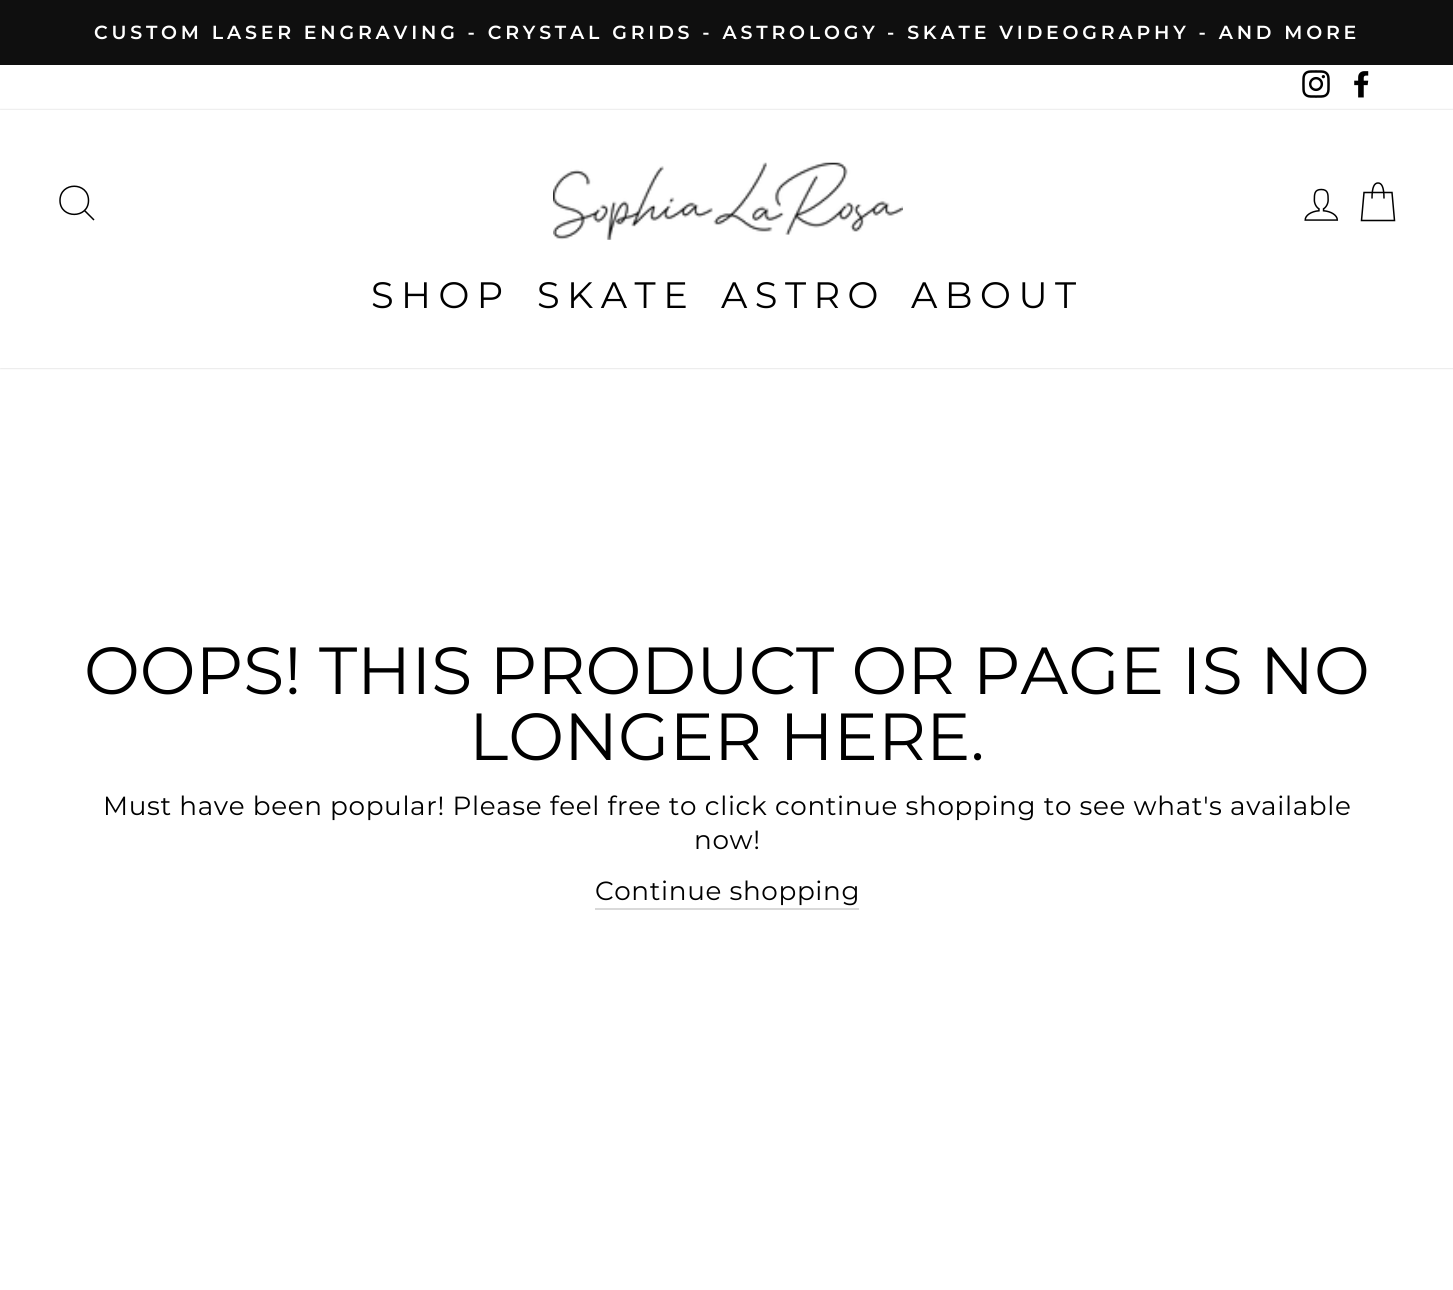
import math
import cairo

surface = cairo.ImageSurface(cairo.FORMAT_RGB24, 1453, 1290)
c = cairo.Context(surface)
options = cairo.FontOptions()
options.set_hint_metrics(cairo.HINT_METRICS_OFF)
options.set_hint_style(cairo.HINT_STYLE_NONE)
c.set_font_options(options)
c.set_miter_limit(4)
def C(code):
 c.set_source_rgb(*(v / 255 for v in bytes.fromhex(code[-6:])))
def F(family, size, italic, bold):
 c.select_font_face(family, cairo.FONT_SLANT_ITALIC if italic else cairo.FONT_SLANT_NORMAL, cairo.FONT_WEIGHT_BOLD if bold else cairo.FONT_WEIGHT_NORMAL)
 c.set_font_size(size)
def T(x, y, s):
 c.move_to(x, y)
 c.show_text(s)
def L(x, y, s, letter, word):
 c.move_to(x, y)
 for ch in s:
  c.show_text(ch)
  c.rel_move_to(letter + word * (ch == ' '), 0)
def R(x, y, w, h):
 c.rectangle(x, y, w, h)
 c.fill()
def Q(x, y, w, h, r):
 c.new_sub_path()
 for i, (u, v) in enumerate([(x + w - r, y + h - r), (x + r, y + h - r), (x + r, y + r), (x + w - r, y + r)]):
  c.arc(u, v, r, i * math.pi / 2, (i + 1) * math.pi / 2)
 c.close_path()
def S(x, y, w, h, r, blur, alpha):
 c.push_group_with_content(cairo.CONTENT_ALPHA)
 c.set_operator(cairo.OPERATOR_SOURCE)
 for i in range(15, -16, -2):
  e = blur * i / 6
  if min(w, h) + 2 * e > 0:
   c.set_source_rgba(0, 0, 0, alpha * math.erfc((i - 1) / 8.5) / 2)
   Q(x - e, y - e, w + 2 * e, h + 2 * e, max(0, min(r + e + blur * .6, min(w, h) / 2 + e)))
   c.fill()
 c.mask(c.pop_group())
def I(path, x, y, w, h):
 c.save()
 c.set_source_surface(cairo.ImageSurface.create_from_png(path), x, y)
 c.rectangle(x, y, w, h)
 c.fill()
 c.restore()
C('ffffff')
c.paint()
C('0f0f0f')
R(0,0,1453,65)
F('Montserrat SemiBold',18.95,0,0)
C('ffffff')
L(94,39,'CUSTOM LASER ENGRAVING - CRYSTAL GRIDS - ASTROLOGY',3.8,0)
L(887,39,'- SKATE VIDEOGRAPHY - AND MORE',3.8,0)
I('1.png',1302,70,28,28)
I('2.png',1354,71,15,27)
C('000000')
S(0,110,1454,258,0,1,.2)
C('ffffff')
R(0,110,1453,258)
c.new_path()
c.move_to(88.5,200.5)
c.curve_to(88.5,219,60,219,60,200.5)
c.curve_to(60,181.5,88.5,181.5,88.5,200.5)
c.close_path()
c.move_to(94,220)
c.line_to(84.5,210.5)
C('000000')
c.set_line_width(1.5)
c.stroke()
I('3.png',553,162,350,78)
I('4.png',1304,188,35,33)
c.new_path()
c.move_to(1372,198.5)
c.curve_to(1372,186.5,1374.5,183,1378,183)
c.curve_to(1381.5,183,1384,186.5,1384,198.5)
c.move_to(1364,192.5)
c.line_to(1392,192.5)
c.line_to(1394.5,220.5)
c.line_to(1361.5,220.5)
c.close_path()
c.stroke()
F('Montserrat',36.75,0,0)
L(371,308,'SHOP',7.5,0)
L(537,308,'SKATE',7.5,0)
L(721,308,'ASTRO',7.5,0)
L(911,308,'ABOUT',7.5,0)
F('Montserrat',66.5,0,0)
T(84,694,'OOPS! THIS PRODUCT OR PAGE IS NO')
T(469,760,'LONGER HERE.')
F('Montserrat',26.25,0,0)
L(103,815,'Must have been popular! Please feel free to click continue shopping to see what\'s available',.65,0)
L(694,849,'now!',.65,0)
C('d9d9d9')
R(595,908,264,2)
C('000000')
L(595,900,'Continue shopping',.65,0)
surface.write_to_png('o.png')
